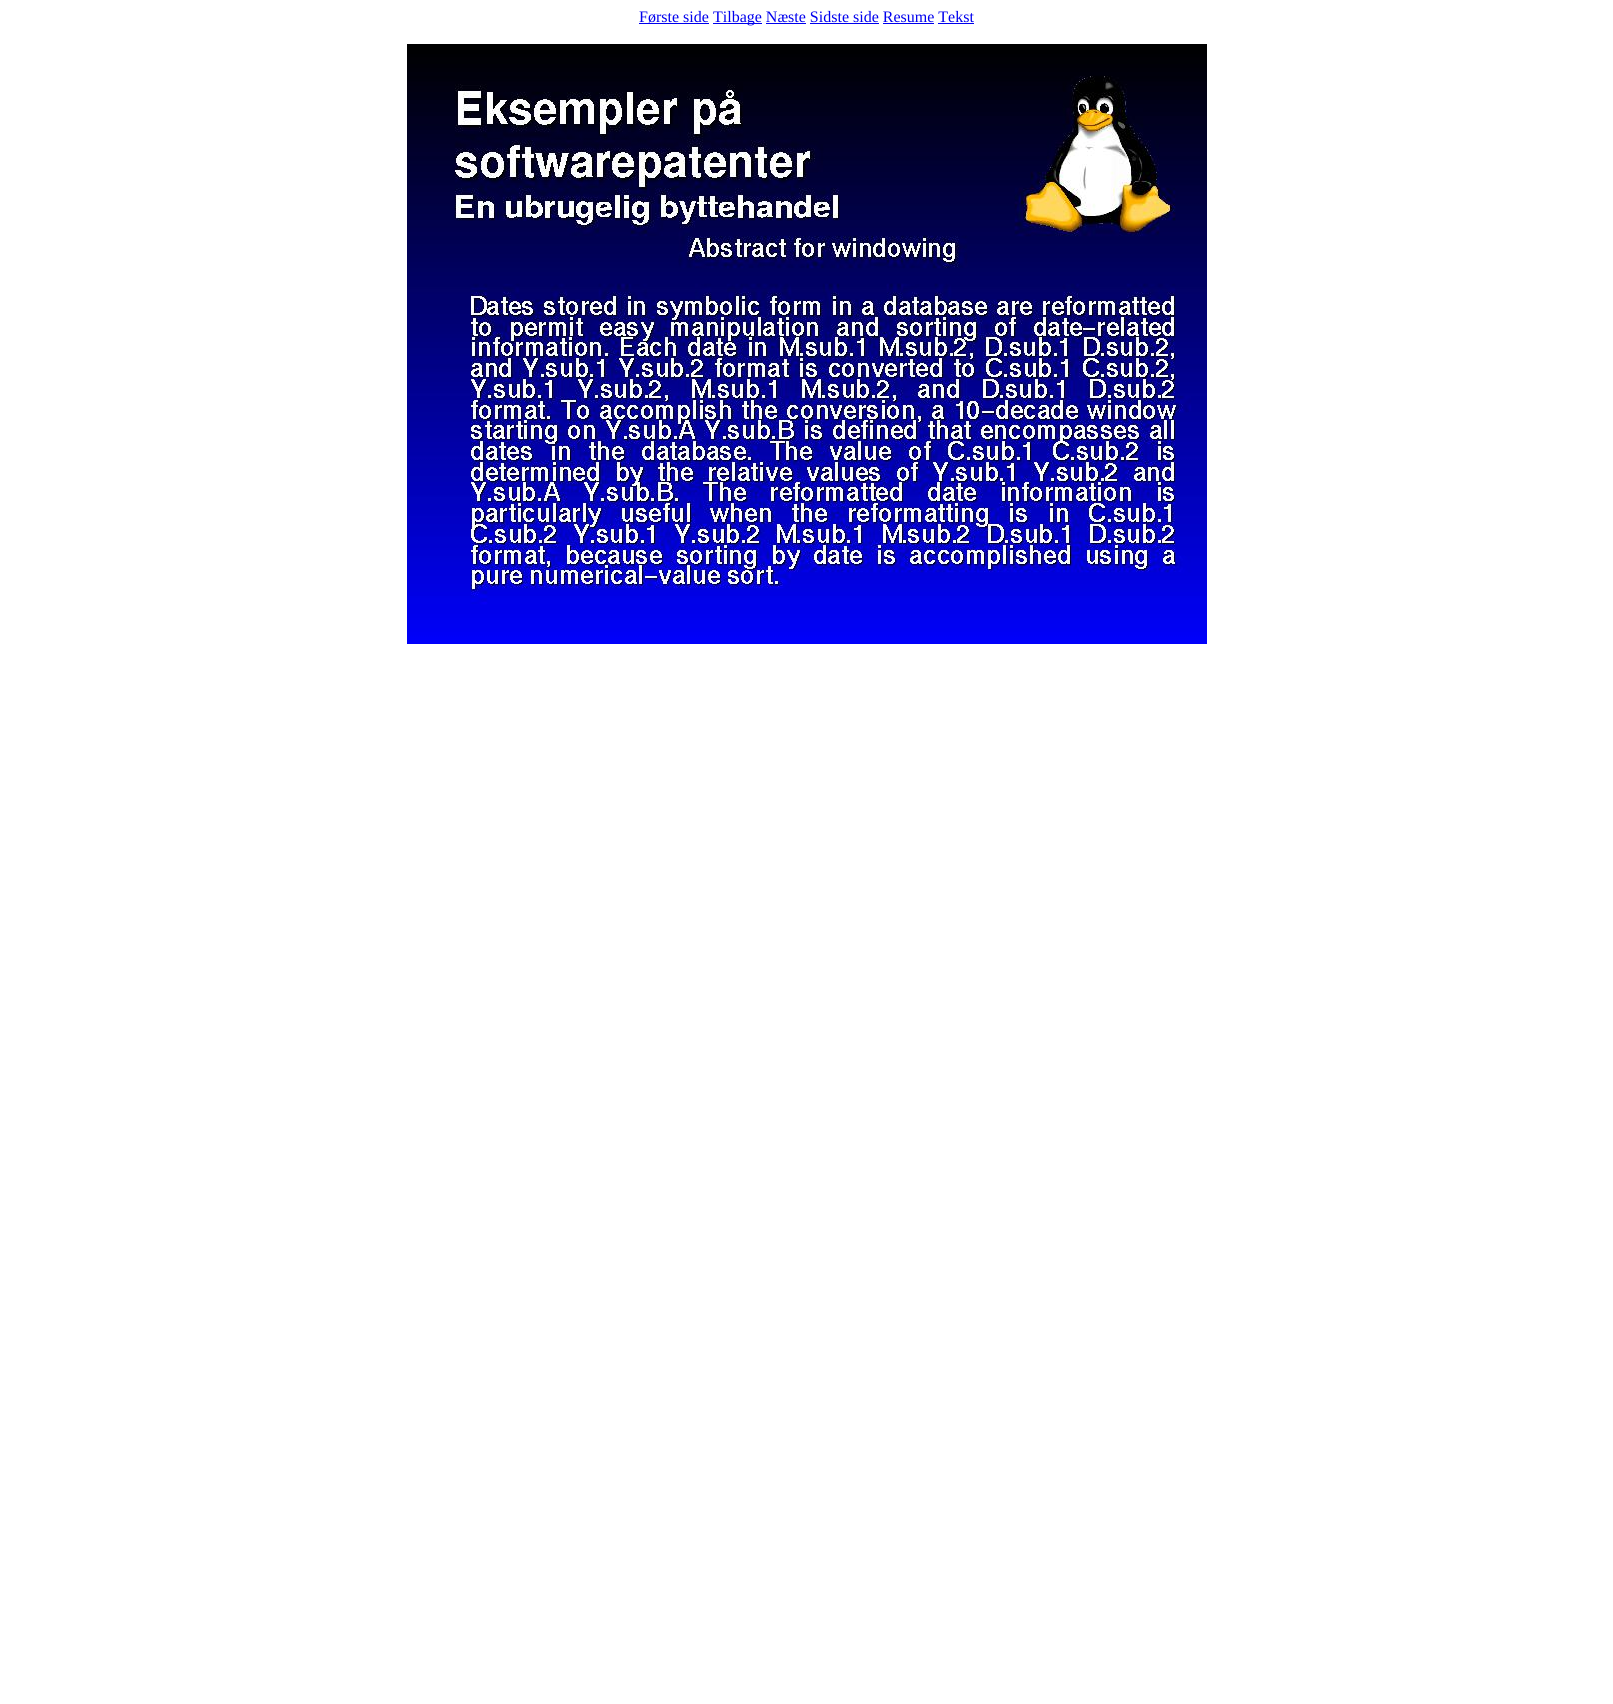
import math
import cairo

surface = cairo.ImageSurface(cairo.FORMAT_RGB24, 1613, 1704)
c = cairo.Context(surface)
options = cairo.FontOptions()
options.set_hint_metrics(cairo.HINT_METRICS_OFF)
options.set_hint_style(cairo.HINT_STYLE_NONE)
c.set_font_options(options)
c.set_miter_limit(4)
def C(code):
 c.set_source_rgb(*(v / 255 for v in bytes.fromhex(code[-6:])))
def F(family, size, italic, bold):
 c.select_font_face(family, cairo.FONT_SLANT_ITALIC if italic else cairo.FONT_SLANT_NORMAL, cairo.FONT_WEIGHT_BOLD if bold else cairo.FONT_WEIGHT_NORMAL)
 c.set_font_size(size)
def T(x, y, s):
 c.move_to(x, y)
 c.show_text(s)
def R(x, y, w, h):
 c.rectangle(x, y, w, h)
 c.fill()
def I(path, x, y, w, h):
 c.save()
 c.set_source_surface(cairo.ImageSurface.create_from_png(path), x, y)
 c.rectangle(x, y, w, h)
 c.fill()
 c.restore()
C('ffffff')
c.paint()
F('Liberation Serif',16,0,0)
C('0000ee')
T(639,22,'Første side')
R(639,23,70,1)
R(713,23,49,1)
T(713,22,'Tilbage Næste Sidste side Resume Tekst')
R(766,23,40,1)
R(810,23,69,1)
R(883,23,51,1)
R(938,23,36,1)
I('1.png',407,44,800,600)
surface.write_to_png('o.png')
